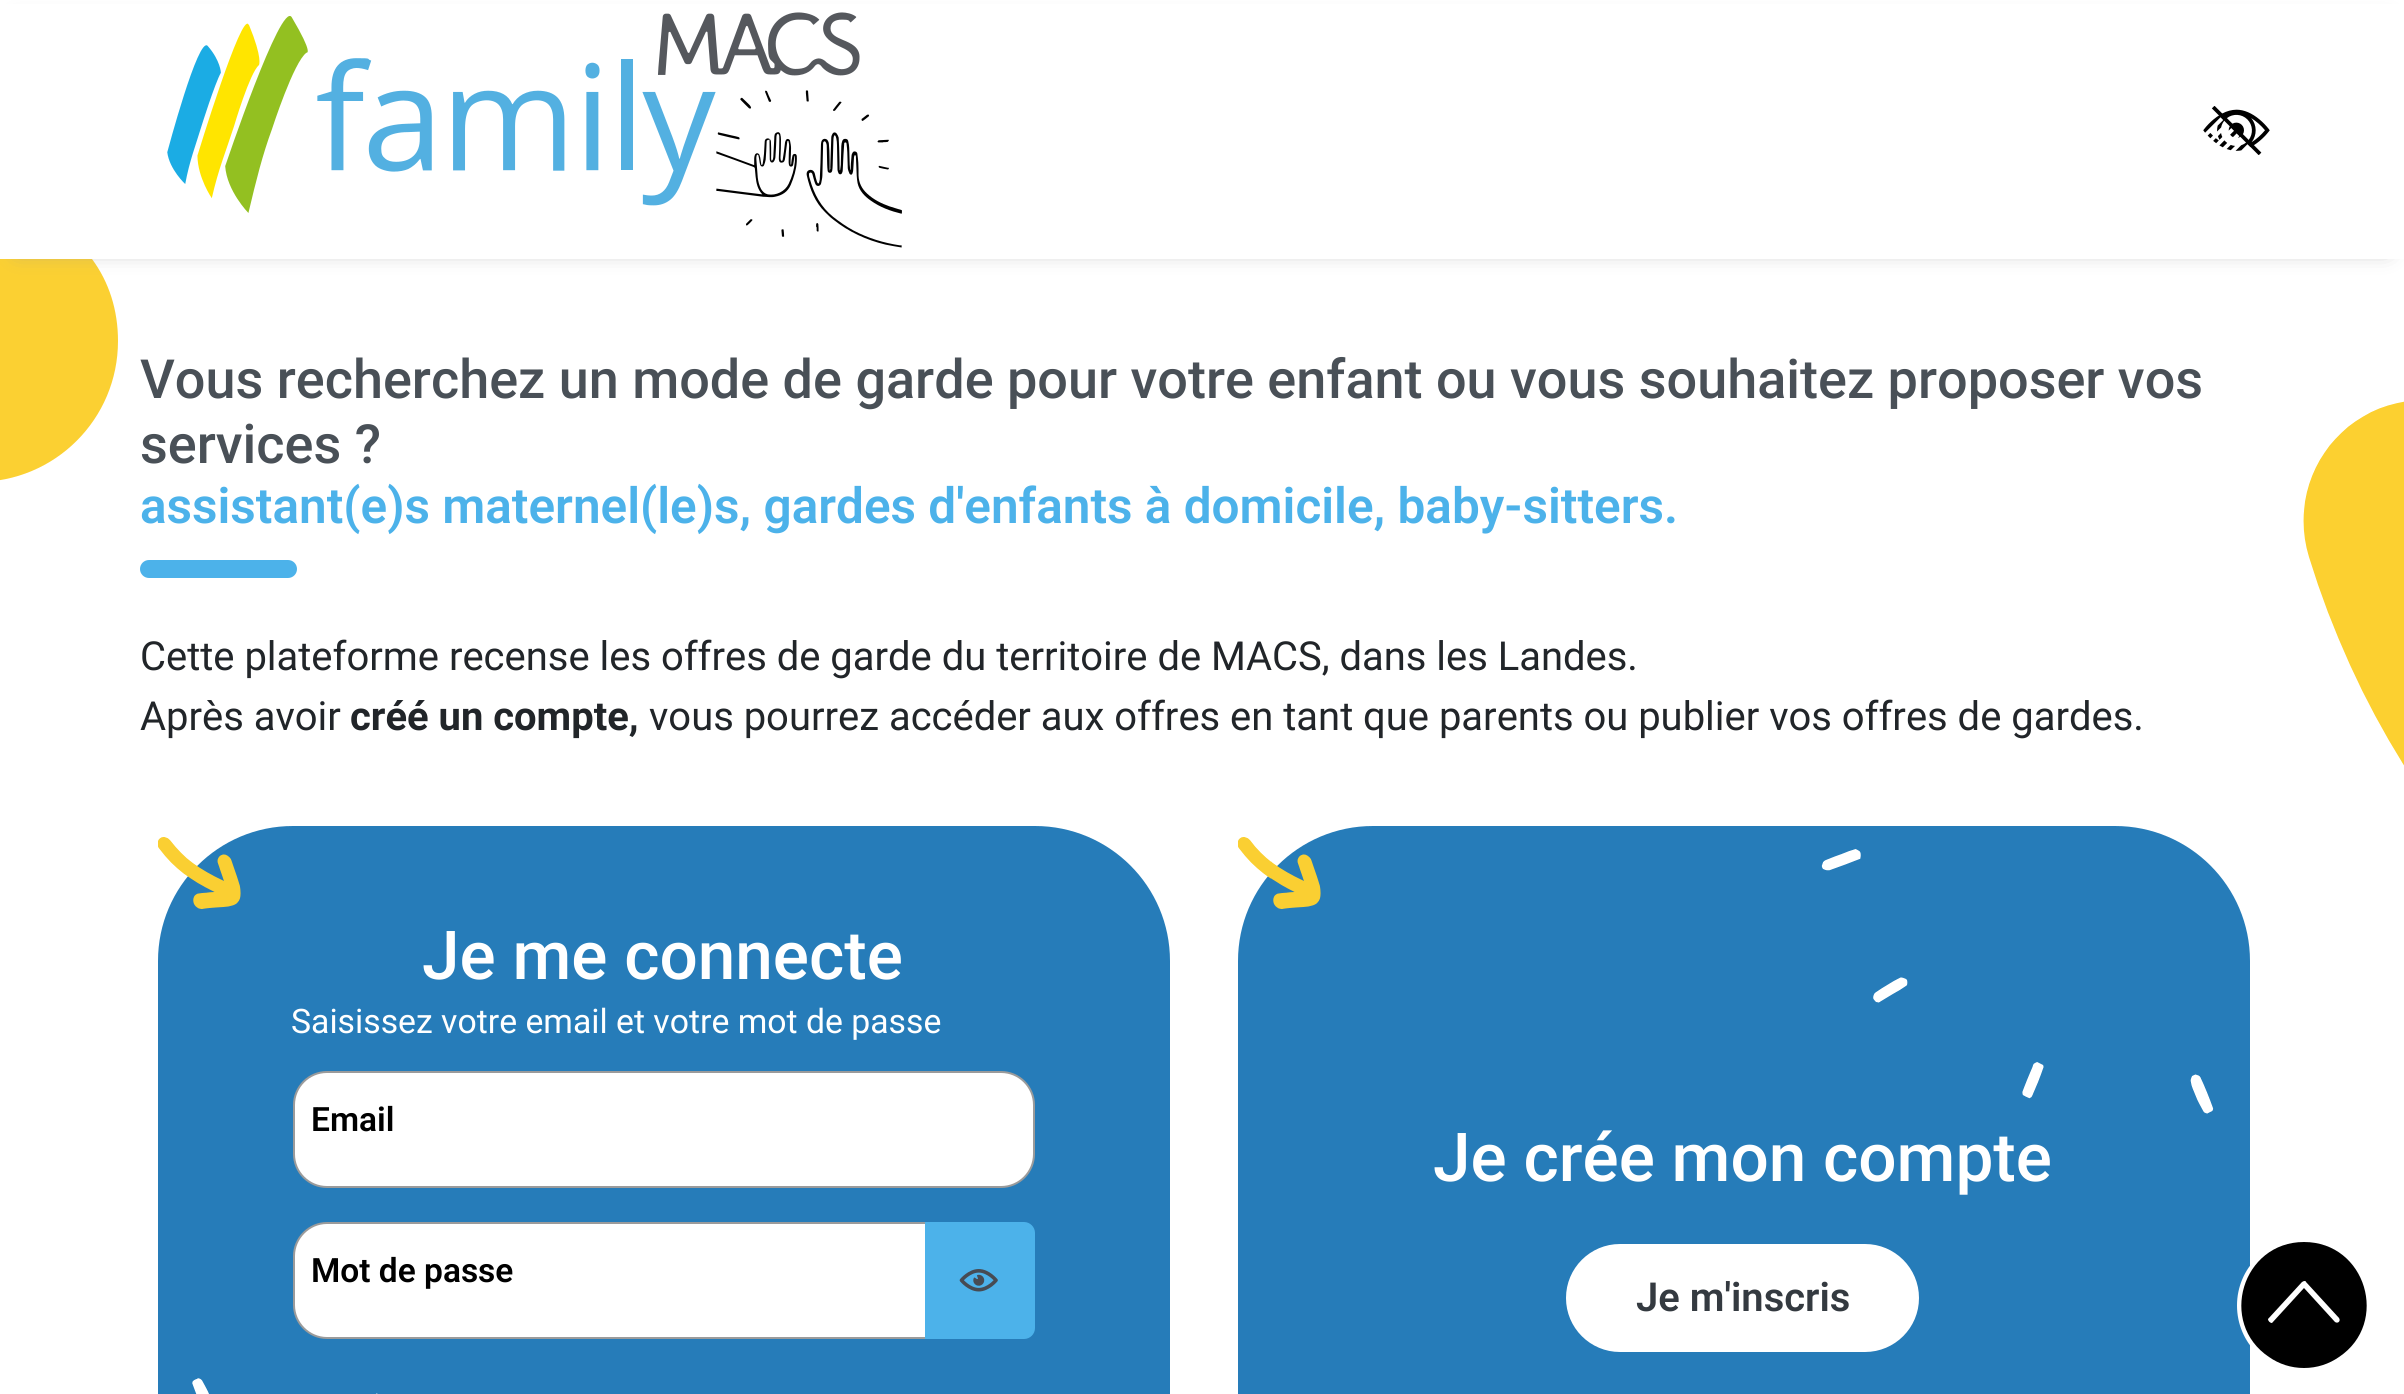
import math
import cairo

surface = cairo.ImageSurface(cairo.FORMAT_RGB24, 2404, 1394)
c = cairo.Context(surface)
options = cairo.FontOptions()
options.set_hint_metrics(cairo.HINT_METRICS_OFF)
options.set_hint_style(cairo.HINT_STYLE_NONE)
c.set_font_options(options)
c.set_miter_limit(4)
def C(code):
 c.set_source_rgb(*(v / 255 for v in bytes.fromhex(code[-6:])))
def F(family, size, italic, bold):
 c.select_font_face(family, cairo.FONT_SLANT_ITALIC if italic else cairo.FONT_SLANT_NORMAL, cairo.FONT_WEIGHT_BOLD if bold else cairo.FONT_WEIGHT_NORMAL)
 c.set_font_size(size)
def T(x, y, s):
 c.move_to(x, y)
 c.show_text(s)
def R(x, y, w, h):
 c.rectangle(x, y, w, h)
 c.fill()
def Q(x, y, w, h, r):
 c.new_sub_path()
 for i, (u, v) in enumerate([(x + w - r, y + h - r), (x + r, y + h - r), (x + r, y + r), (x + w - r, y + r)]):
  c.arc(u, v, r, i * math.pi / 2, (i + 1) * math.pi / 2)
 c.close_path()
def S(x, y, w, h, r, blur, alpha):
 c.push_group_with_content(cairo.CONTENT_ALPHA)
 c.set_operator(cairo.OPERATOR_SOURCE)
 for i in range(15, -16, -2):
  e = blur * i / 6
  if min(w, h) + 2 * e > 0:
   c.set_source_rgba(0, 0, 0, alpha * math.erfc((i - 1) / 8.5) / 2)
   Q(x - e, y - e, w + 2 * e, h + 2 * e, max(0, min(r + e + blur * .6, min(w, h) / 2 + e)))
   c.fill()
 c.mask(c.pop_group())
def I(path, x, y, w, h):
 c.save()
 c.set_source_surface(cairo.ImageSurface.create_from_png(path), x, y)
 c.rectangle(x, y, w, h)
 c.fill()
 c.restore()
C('ffffff')
c.paint()
C('fbd032')
c.new_path()
c.move_to(-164,341)
c.curve_to(-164,419,-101,482,-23,482)
c.curve_to(55,482,118,419,118,341)
c.curve_to(118,310,109,282,92,259)
c.line_to(-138,259)
c.curve_to(-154,282,-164,310,-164,341)
c.close_path()
c.fill()
C('9b9b9b')
S(18,25,2369,223,0,11,1)
C('ffffff')
R(0,4,2404,255)
I('1.png',167,12,735,236)
I('2.png',2203,106,67,49)
F('Roboto Medium',54,0,0)
C('495057')
T(140,398,'Vous recherchez un mode de garde pour votre enfant ou vous souhaitez proposer vos')
T(140,463,'services ?')
F('Roboto SemiBold',49.5,0,0)
C('4cb2ea')
T(140,523,'assistant(e)s maternel(le)s, gardes d\'enfants à domicile, baby-sitters.')
Q(140,560,157,18,9)
c.fill()
F('Roboto',39.95,0,0)
C('212529')
T(140,670,'Cette plateforme recense les offres de garde du territoire de MACS, dans les Landes.')
T(140,730,'Après avoir')
F('Roboto',39.95,0,1)
T(350,730,'créé un compte,')
F('Roboto',39.95,0,0)
T(649,730,'vous pourrez accéder aux offres en tant que parents ou publier vos offres de gardes.')
C('267cb9')
Q(158,826,1012,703,135)
c.fill()
I('3.png',158,837,83,72)
F('Roboto Medium',67.5,0,0)
C('ffffff')
T(422,979,'Je me connecte')
F('Roboto',33.75,0,0)
T(291,1033,'Saisissez votre email et votre mot de passe')
Q(294,1072,740,115,33)
c.fill_preserve()
C('9b9b9b')
c.stroke()
F('Roboto SemiBold',33.5,0,0)
C('000000')
T(311,1131,'Email')
C('ffffff')
c.new_path()
c.move_to(327,1223)
c.line_to(926,1223)
c.line_to(926,1338)
c.line_to(327,1338)
c.curve_to(309,1338,294,1323,294,1305)
c.line_to(294,1256)
c.curve_to(294,1238,309,1223,327,1223)
c.close_path()
c.fill_preserve()
C('9b9b9b')
c.stroke()
C('000000')
T(311,1282,'Mot de passe')
C('4cb2ea')
c.new_path()
c.move_to(926,1223)
c.line_to(1024,1223)
c.curve_to(1029.5,1223,1034,1227.5,1034,1233)
c.line_to(1034,1328)
c.curve_to(1034,1333.5,1029.5,1338,1024,1338)
c.line_to(926,1338)
c.close_path()
c.fill_preserve()
c.stroke()
I('4.png',959,1269,39,23)
I('5.png',192,1378,186,16)
C('267cb9')
Q(1238,826,1012,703,135)
c.fill()
I('6.png',1238,837,83,72)
I('7.png',1821,849,393,265)
F('Roboto Medium',67.5,0,0)
C('ffffff')
T(1433,1181,'Je crée mon compte')
Q(1567,1245,351,106,53)
c.fill_preserve()
c.stroke()
F('Roboto SemiBold',39.95,0,0)
C('343a40')
T(1636,1311,'Je m\'inscris')
I('8.png',2303,401,101,365)
C('ffffff')
c.arc(2304.5,1305.5,65,0,2 * math.pi)
c.fill_preserve()
c.set_line_width(5)
c.stroke()
C('000000')
c.set_fill_rule(cairo.FILL_RULE_EVEN_ODD)
c.new_path()
c.move_to(2304,1242)
c.curve_to(2242,1242,2218,1323,2269,1357)
c.curve_to(2279,1364,2291,1368,2304,1368)
c.curve_to(2317,1368,2329,1364,2339,1357)
c.curve_to(2390,1323,2366,1242,2304,1242)
c.close_path()
c.move_to(2304,1281)
c.line_to(2302,1282)
c.line_to(2268,1319)
c.curve_to(2268,1321,2270,1323,2272,1323)
c.line_to(2304,1288)
c.line_to(2335,1322)
c.curve_to(2338,1324,2341,1321,2339,1318)
c.line_to(2306,1282)
c.curve_to(2306,1281,2305,1281,2304,1281)
c.close_path()
c.fill()
surface.write_to_png('o.png')
